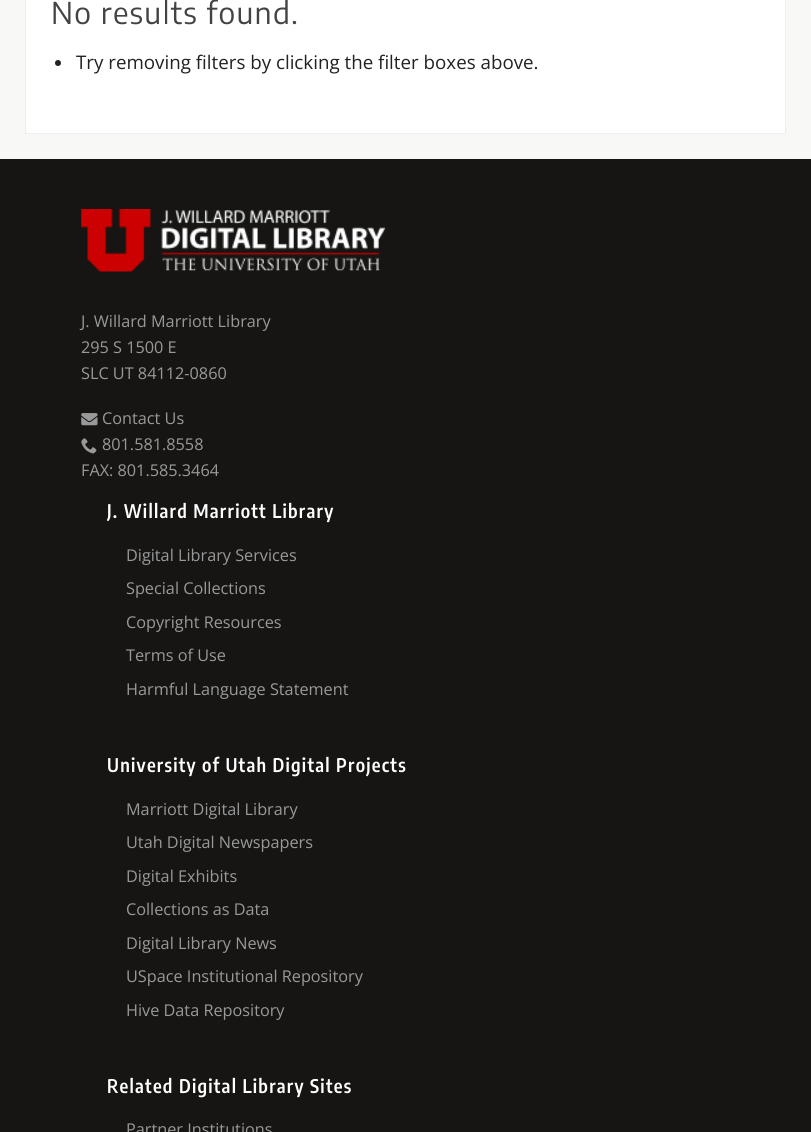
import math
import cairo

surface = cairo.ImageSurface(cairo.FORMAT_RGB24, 811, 1132)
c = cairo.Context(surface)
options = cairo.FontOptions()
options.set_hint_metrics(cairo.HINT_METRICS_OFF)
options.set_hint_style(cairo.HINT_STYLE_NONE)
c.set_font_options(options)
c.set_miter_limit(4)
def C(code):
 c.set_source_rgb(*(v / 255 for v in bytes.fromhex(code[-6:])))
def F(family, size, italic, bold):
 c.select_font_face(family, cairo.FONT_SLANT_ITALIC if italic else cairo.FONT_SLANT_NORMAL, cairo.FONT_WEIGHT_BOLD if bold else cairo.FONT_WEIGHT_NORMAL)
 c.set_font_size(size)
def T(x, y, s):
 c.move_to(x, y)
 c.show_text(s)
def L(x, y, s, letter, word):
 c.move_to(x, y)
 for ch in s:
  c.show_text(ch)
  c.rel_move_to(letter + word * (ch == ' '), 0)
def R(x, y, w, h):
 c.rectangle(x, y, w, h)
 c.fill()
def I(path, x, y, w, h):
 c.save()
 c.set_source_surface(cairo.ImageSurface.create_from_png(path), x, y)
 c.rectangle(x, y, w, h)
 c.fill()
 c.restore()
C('f8f8f7')
c.paint()
C('ffffff')
c.rectangle(25.5,-.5,760,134)
c.fill_preserve()
C('eeeeee')
c.set_line_width(1)
c.stroke()
F('Encode Sans',30,0,0)
C('434343')
L(51,24,'No results found.',1.25,0)
C('222222')
c.new_path()
c.arc(58,63,3,0,2 * math.pi)
c.fill()
F('Open Sans',18.75,0,0)
T(76,69,'Try removing filters by clicking the filter boxes above.')
C('161514')
R(0,159,811,973)
I('1.png',81,209,304,63)
F('Open Sans',16.25,0,0)
C('999999')
T(81,327,'J. Willard Marriott Library')
T(81,353,'295 S 1500 E')
T(81,379,'SLC UT 84112-0860')
I('2.png',81,413,17,13)
T(102,424,'Contact Us')
I('3.png',81,438,16,16)
T(102,450,'801.581.8558')
T(81,476,'FAX: 801.585.3464')
F('Encode Sans Condensed SemiBold',18.75,0,0)
C('ffffff')
L(107,518,'J. Willard Marriott Library',1.25,0)
F('Open Sans',16.25,0,0)
C('999999')
T(126,561,'Digital Library Services')
T(126,594,'Special Collections')
T(126,628,'Copyright Resources')
T(126,661,'Terms of Use')
T(126,695,'Harmful Language Statement')
F('Encode Sans Condensed SemiBold',18.75,0,0)
C('ffffff')
L(107,772,'University of Utah Digital Projects',1.25,0)
F('Open Sans',16.25,0,0)
C('999999')
T(126,815,'Marriott Digital Library')
T(126,848,'Utah Digital Newspapers')
T(126,882,'Digital Exhibits')
T(126,915,'Collections as Data')
T(126,949,'Digital Library News')
T(126,982,'USpace Institutional Repository')
T(126,1016,'Hive Data Repository')
F('Encode Sans Condensed SemiBold',18.75,0,0)
C('ffffff')
L(107,1093,'Related Digital Library Sites',1.25,0)
F('Open Sans',16.25,0,0)
C('999999')
T(126,1135,'Partner Institutions')
surface.write_to_png('o.png')
